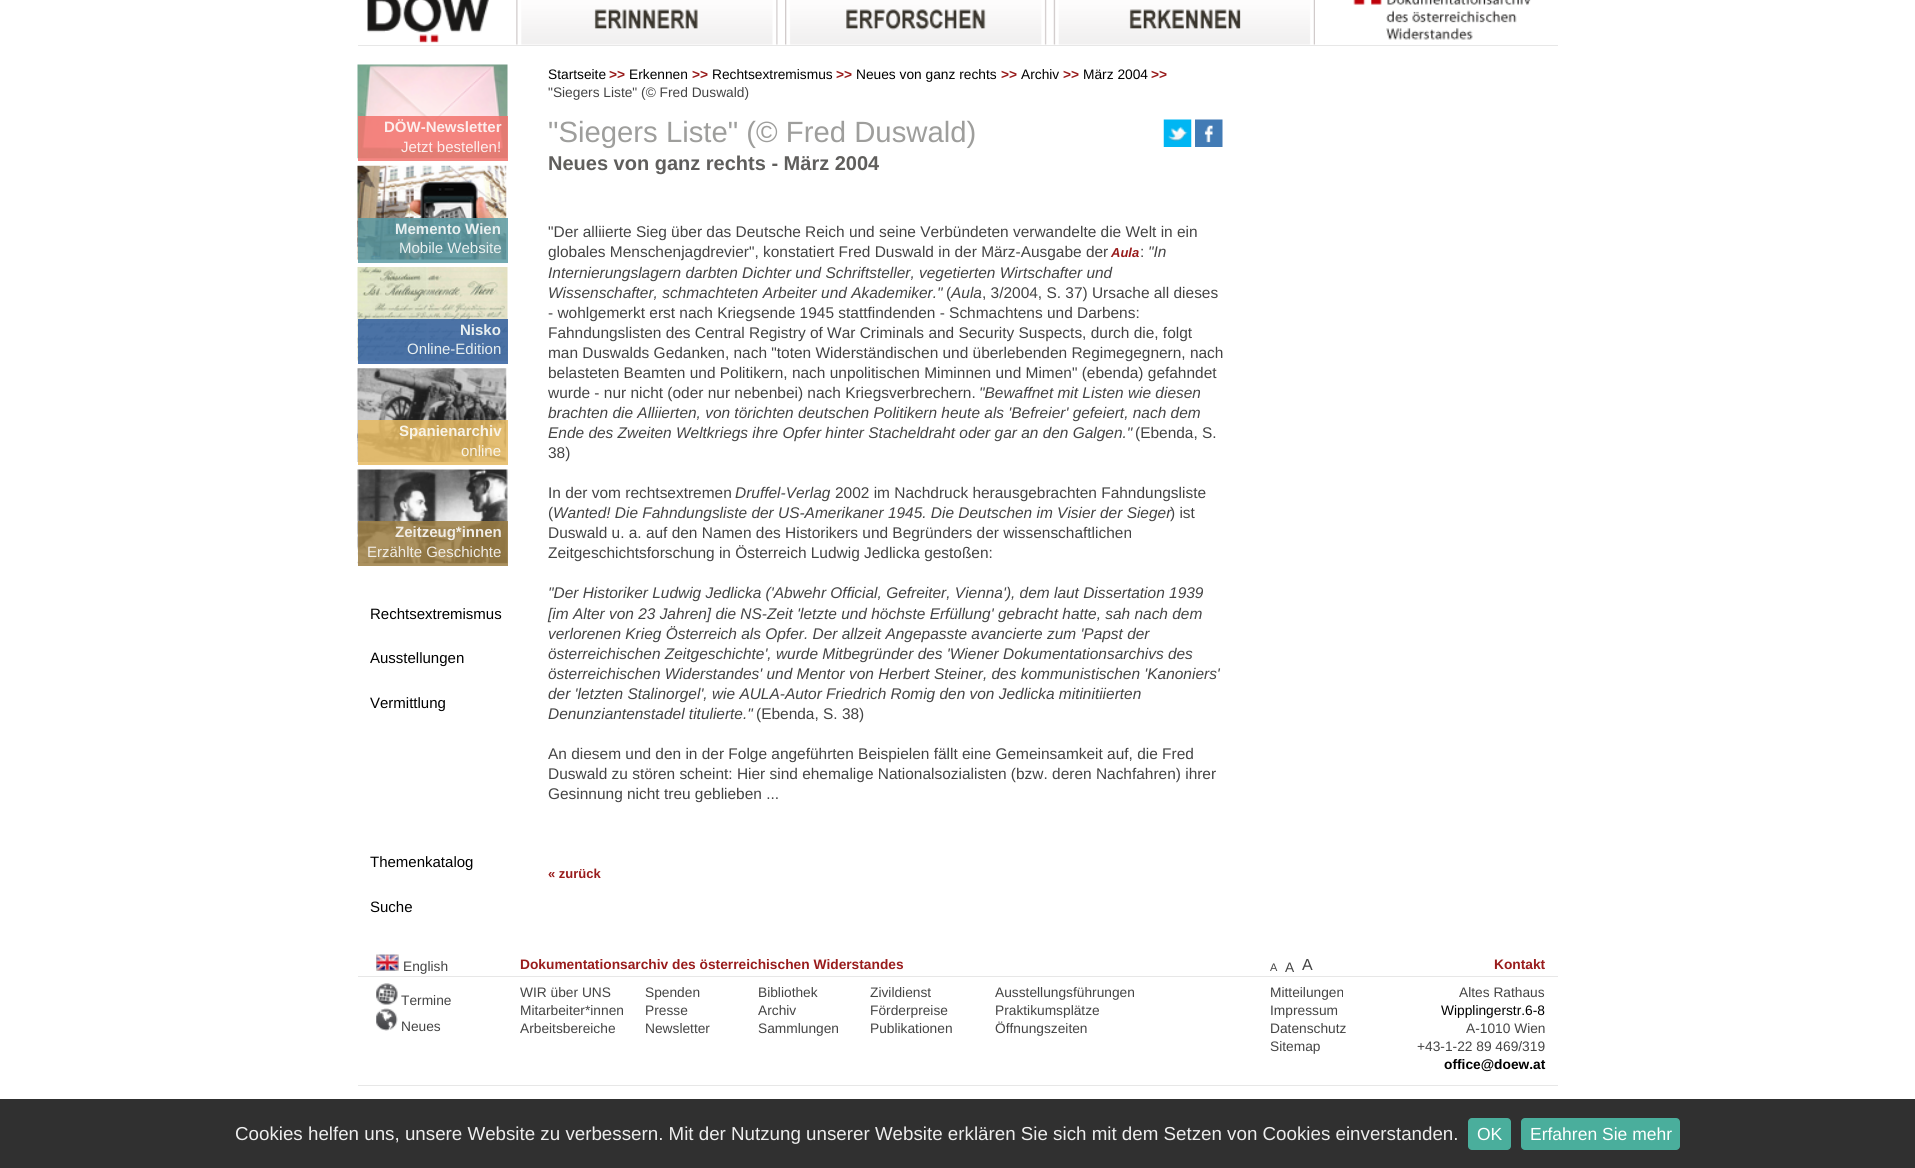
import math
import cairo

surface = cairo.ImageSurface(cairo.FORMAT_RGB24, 1915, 1168)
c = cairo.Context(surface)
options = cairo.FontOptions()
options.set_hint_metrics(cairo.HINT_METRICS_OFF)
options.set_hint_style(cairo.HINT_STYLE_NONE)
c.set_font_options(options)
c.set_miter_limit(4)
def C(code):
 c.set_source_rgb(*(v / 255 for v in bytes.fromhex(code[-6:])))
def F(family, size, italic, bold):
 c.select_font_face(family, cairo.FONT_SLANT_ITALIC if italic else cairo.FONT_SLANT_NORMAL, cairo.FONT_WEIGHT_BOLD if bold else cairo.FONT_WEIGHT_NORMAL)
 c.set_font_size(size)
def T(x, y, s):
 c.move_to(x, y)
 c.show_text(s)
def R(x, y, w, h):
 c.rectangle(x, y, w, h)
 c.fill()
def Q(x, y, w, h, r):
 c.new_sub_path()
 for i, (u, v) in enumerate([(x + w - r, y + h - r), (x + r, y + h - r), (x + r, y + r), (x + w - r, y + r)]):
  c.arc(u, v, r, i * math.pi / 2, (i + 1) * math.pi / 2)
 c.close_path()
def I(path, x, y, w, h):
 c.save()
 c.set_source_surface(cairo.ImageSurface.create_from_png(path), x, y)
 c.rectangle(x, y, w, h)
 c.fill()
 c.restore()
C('ffffff')
c.paint()
C('e7e7e7')
R(358,45,1200,1)
I('1.png',367,0,122,43)
I('2.png',516,0,262,45)
I('3.png',785,0,262,45)
I('4.png',1053,0,262,45)
I('5.png',1353,0,178,40)
I('6.png',357,64,151,95)
c.set_source_rgba(0.949,0.447,0.427,0.85)
R(358,116,150,45)
F('Liberation Sans',15,0,1)
C('fdedec')
T(384,132,'DÖW-Newsletter')
F('Liberation Sans',15,0,0)
T(401,152,'Jetzt bestellen!')
I('7.png',357,165,150,95)
c.set_source_rgba(0.357,0.604,0.639,0.85)
R(358,218,150,45)
F('Liberation Sans',15,0,1)
C('e8eff0')
T(395,234,'Memento Wien')
F('Liberation Sans',15,0,0)
T(399,253,'Mobile Website')
I('8.png',357,267,151,94)
c.set_source_rgba(0.192,0.369,0.624,0.85)
R(358,319,150,45)
F('Liberation Sans',15,0,1)
C('e8eff0')
T(460,335,'Nisko')
F('Liberation Sans',15,0,0)
T(407,354,'Online-Edition')
I('9.png',357,368,150,94)
c.set_source_rgba(0.902,0.729,0.38,0.85)
R(358,420,150,45)
F('Liberation Sans',15,0,1)
C('f8f3e7')
T(399,436,'Spanienarchiv')
F('Liberation Sans',15,0,0)
T(461,456,'online')
I('10.png',357,469,151,95)
c.set_source_rgba(0.612,0.494,0.263,0.85)
R(358,521,150,45)
F('Liberation Sans',15,0,1)
C('f0ece5')
T(395,537,'Zeitzeug*innen')
F('Liberation Sans',15,0,0)
T(367,557,'Erzählte Geschichte')
C('000000')
T(370,619,'Rechtsextremismus')
T(370,663,'Ausstellungen')
T(370,708,'Vermittlung')
T(370,867,'Themenkatalog')
T(370,912,'Suche')
F('Liberation Sans',13.75,0,0)
T(548,79,'Startseite')
F('Liberation Sans',13.75,0,1)
C('991c1c')
T(609,79,'>>')
F('Liberation Sans',13.75,0,0)
C('000000')
T(629,79,'Erkennen')
F('Liberation Sans',13.75,0,1)
C('991c1c')
T(692,79,'>>')
F('Liberation Sans',13.75,0,0)
C('000000')
T(712,79,'Rechtsextremismus')
F('Liberation Sans',13.75,0,1)
C('991c1c')
T(836,79,'>>')
F('Liberation Sans',13.75,0,0)
C('000000')
T(856,79,'Neues von ganz rechts')
F('Liberation Sans',13.75,0,1)
C('991c1c')
T(1001,79,'>>')
F('Liberation Sans',13.75,0,0)
C('000000')
T(1021,79,'Archiv')
F('Liberation Sans',13.75,0,1)
C('991c1c')
T(1063,79,'>>')
F('Liberation Sans',13.75,0,0)
C('000000')
T(1083,79,'März 2004')
F('Liberation Sans',13.75,0,1)
C('991c1c')
T(1151,79,'>>')
F('Liberation Sans',13.75,0,0)
C('444444')
T(548,97,'"Siegers Liste" (© Fred Duswald)')
F('Liberation Sans',29.3,0,0)
C('9e9e9c')
T(548,142,'"Siegers Liste" (© Fred Duswald)')
I('11.png',1163,119,29,28)
I('12.png',1195,119,28,28)
F('Liberation Sans',20,0,1)
C('5f5e5c')
T(548,170,'Neues von ganz rechts - März 2004')
F('Liberation Sans',15.45,0,0)
C('444444')
T(548,237,'"Der alliierte Sieg über das Deutsche Reich und seine Verbündeten verwandelte die Welt in ein')
T(548,257,'globales Menschenjagdrevier", konstatiert Fred Duswald in der März-Ausgabe der')
F('Liberation Sans',13,1,1)
C('991c1c')
T(1111,257,'Aula')
F('Liberation Sans',15.45,0,0)
C('444444')
T(1140,257,':')
F('Liberation Sans',15.45,1,0)
T(1148,257,'"In')
T(548,278,'Internierungslagern darbten Dichter und Schriftsteller, vegetierten Wirtschafter und')
T(548,298,'Wissenschafter, schmachteten Arbeiter und Akademiker."')
F('Liberation Sans',15.45,0,0)
T(946,298,'(')
F('Liberation Sans',15.45,1,0)
T(951,298,'Aula')
F('Liberation Sans',15.45,0,0)
T(982,298,', 3/2004, S. 37) Ursache all dieses')
T(548,318,'- wohlgemerkt erst nach Kriegsende 1945 stattfindenden - Schmachtens und Darbens:')
T(548,338,'Fahndungslisten des Central Registry of War Criminals and Security Suspects, durch die, folgt')
T(548,358,'man Duswalds Gedanken, nach "toten Widerständischen und überlebenden Regimegegnern, nach')
T(548,378,'belasteten Beamten und Politikern, nach unpolitischen Miminnen und Mimen" (ebenda) gefahndet')
T(548,398,'wurde - nur nicht (oder nur nebenbei) nach Kriegsverbrechern.')
F('Liberation Sans',15.45,1,0)
T(979,398,'"Bewaffnet mit Listen wie diesen')
T(548,418,'brachten die Alliierten, von törichten deutschen Politikern heute als \'Befreier\' gefeiert, nach dem')
T(548,438,'Ende des Zweiten Weltkriegs ihre Opfer hinter Stacheldraht oder gar an den Galgen."')
F('Liberation Sans',15.45,0,0)
T(1135,438,'(Ebenda, S.')
T(548,458,'38)')
T(548,498,'In der vom rechtsextremen')
F('Liberation Sans',15.45,1,0)
T(735,498,'Druffel-Verlag')
F('Liberation Sans',15.45,0,0)
T(835,498,'2002 im Nachdruck herausgebrachten Fahndungsliste')
T(548,518,'(')
F('Liberation Sans',15.45,1,0)
T(553,518,'Wanted! Die Fahndungsliste der US-Amerikaner 1945. Die Deutschen im Visier der Sieger')
F('Liberation Sans',15.45,0,0)
T(1170,518,') ist')
T(548,538,'Duswald u. a. auf den Namen des Historikers und Begründers der wissenschaftlichen')
T(548,558,'Zeitgeschichtsforschung in Österreich Ludwig Jedlicka gestoßen:')
F('Liberation Sans',15.45,1,0)
T(548,598,'"Der Historiker Ludwig Jedlicka (\'Abwehr Official, Gefreiter, Vienna\'), dem laut Dissertation 1939')
T(548,619,'[im Alter von 23 Jahren] die NS-Zeit \'letzte und höchste Erfüllung\' gebracht hatte, sah nach dem')
T(548,639,'verlorenen Krieg Österreich als Opfer. Der allzeit Angepasste avancierte zum \'Papst der')
T(548,659,'österreichischen Zeitgeschichte\', wurde Mitbegründer des \'Wiener Dokumentationsarchivs des')
T(548,679,'österreichischen Widerstandes\' und Mentor von Herbert Steiner, des kommunistischen \'Kanoniers\'')
T(548,699,'der \'letzten Stalinorgel\', wie AULA-Autor Friedrich Romig den von Jedlicka mitinitiierten')
T(548,719,'Denunziantenstadel titulierte."')
F('Liberation Sans',15.45,0,0)
T(756,719,'(Ebenda, S. 38)')
T(548,759,'An diesem und den in der Folge angeführten Beispielen fällt eine Gemeinsamkeit auf, die Fred')
T(548,779,'Duswald zu stören scheint: Hier sind ehemalige Nationalsozialisten (bzw. deren Nachfahren) ihrer')
T(548,799,'Gesinnung nicht treu geblieben ...')
F('Liberation Sans',13,0,1)
C('991c1c')
T(548,878,'« zurück')
C('e7e7e7')
R(358,976,1200,1)
I('13.png',376,954,23,17)
F('Liberation Sans',13.75,0,0)
C('444444')
T(403,971,'English')
F('Liberation Sans',13.75,0,1)
C('991c1c')
T(520,969,'Dokumentationsarchiv des österreichischen Widerstandes')
F('Liberation Sans',11,0,0)
C('444444')
T(1270,971,'A')
F('Liberation Sans',13.75,0,0)
T(1285,972,'A')
F('Liberation Sans',16,0,0)
T(1302,970,'A')
F('Liberation Sans',13.75,0,1)
C('991c1c')
T(1494,969,'Kontakt')
I('14.png',376,983,22,22)
F('Liberation Sans',13.75,0,0)
C('444444')
T(401,1005,'Termine')
I('15.png',376,1008,22,23)
T(401,1031,'Neues')
T(520,997,'WIR über UNS')
T(520,1015,'Mitarbeiter*innen')
T(520,1033,'Arbeitsbereiche')
T(645,997,'Spenden')
T(645,1015,'Presse')
T(645,1033,'Newsletter')
T(758,997,'Bibliothek')
T(758,1015,'Archiv')
T(758,1033,'Sammlungen')
T(870,997,'Zivildienst')
T(870,1015,'Förderpreise')
T(870,1033,'Publikationen')
T(995,997,'Ausstellungsführungen')
T(995,1015,'Praktikumsplätze')
T(995,1033,'Öffnungszeiten')
T(1270,997,'Mitteilungen')
T(1270,1015,'Impressum')
T(1270,1033,'Datenschutz')
T(1270,1051,'Sitemap')
T(1459,997,'Altes Rathaus')
C('000000')
T(1441,1015,'Wipplingerstr.6-8')
C('444444')
T(1466,1033,'A-1010 Wien')
T(1417,1051,'+43-1-22 89 469/319')
F('Liberation Sans',13.75,0,1)
C('000000')
T(1444,1069,'office@doew.at')
C('e7e7e7')
R(358,1085,1200,1)
C('303030')
R(0,1099,1915,69)
F('Liberation Sans',18.75,0,0)
C('eeeeee')
T(235,1140,'Cookies helfen uns, unsere Website zu verbessern. Mit der Nutzung unserer Website erklären Sie sich mit dem Setzen von Cookies einverstanden.')
C('4aae9c')
Q(1468,1118,43,32,4)
c.fill()
F('Liberation Sans',17.5,0,0)
C('ffffff')
T(1477,1140,'OK')
C('4aae9c')
Q(1521,1118,159,32,4)
c.fill()
C('ffffff')
T(1530,1140,'Erfahren Sie mehr')
surface.write_to_png('o.png')
